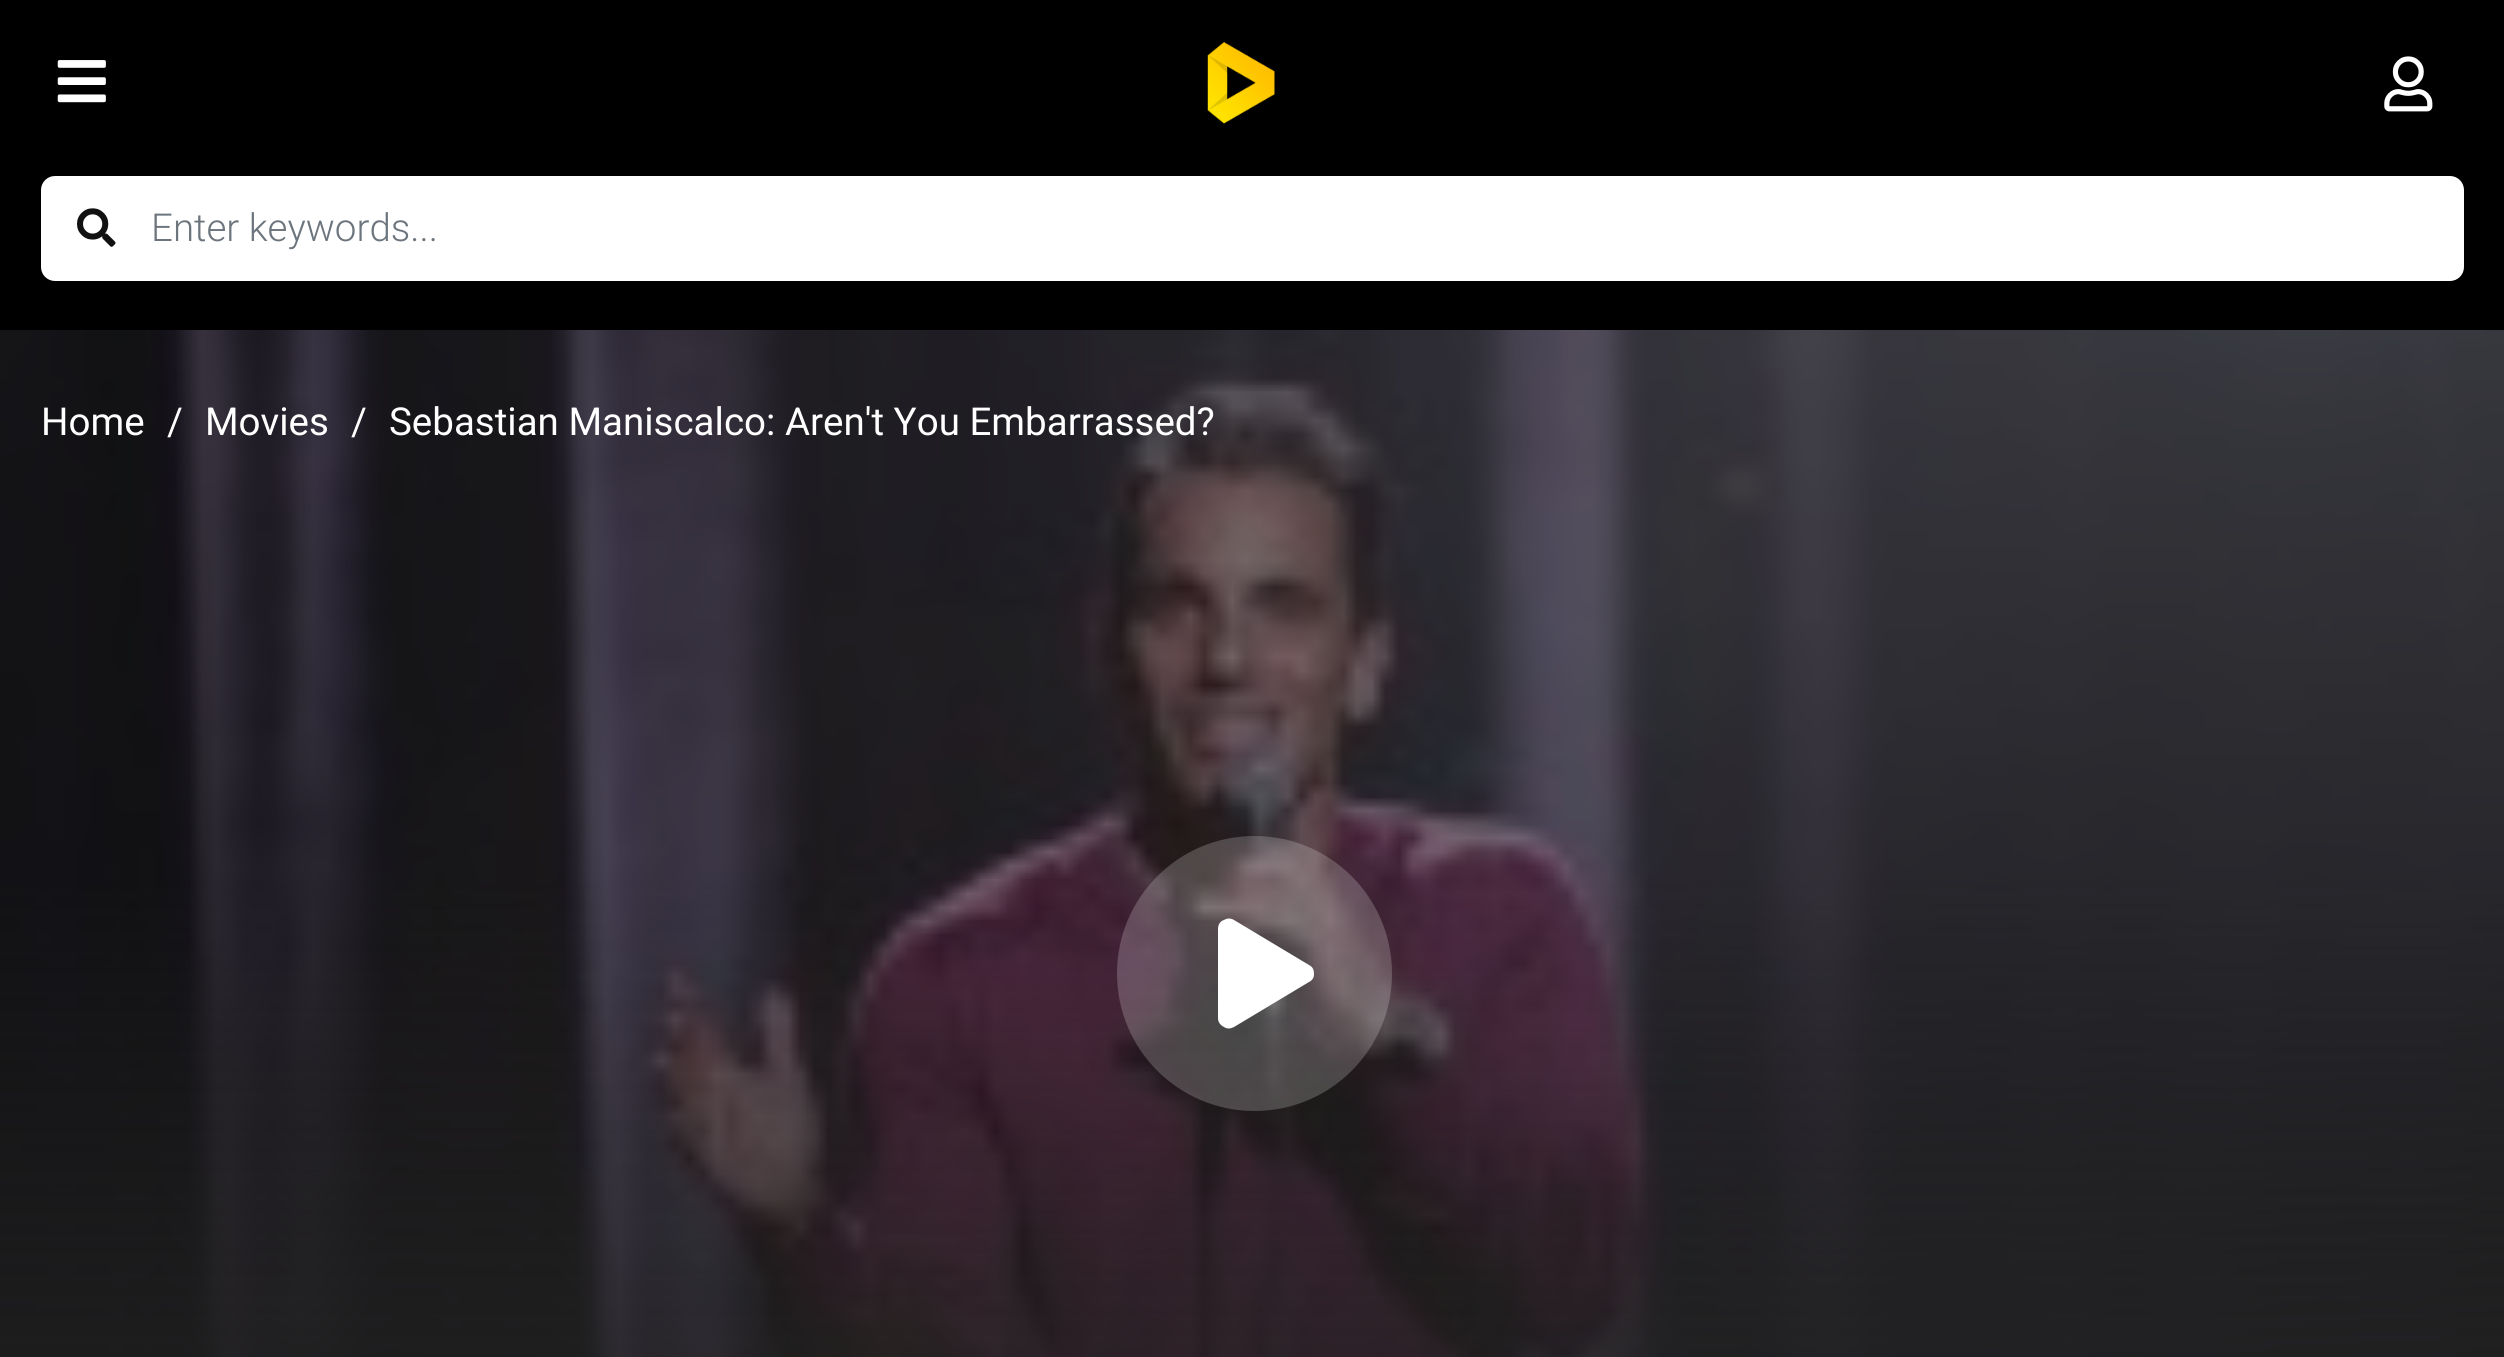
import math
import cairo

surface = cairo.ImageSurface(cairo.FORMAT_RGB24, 2504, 1357)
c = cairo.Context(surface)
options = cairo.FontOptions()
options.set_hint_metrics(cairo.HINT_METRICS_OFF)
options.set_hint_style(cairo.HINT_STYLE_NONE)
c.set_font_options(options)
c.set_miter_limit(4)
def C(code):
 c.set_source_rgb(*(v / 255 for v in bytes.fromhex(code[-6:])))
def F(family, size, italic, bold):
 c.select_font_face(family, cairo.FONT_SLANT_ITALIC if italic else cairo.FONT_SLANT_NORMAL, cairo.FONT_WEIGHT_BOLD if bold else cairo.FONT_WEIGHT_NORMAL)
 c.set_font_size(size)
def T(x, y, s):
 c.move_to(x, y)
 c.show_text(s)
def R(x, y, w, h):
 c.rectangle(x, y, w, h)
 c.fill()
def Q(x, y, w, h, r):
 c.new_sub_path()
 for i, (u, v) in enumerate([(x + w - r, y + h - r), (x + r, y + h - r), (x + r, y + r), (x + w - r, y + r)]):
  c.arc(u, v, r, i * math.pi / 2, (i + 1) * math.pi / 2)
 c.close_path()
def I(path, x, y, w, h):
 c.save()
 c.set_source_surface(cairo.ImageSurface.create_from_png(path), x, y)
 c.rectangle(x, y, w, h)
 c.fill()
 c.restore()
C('ffffff')
c.paint()
C('000000')
R(0,0,2504,330)
I('1.png',57,60,49,43)
I('2.png',1207,42,68,82)
I('3.png',2384,56,49,56)
C('ffffff')
Q(41,176,2423,105,14)
c.fill()
I('4.png',77,208,39,39)
F('Roboto Light',38.5,0,0)
C('6c757d')
T(151,241,'Enter keywords...')
I('5.png',0,330,2504,1027)
F('Roboto',38.5,0,0)
C('ffffff')
T(41,435,'Home')
T(167,435,'/')
T(205,435,'Movies')
T(351,435,'/')
T(389,435,'Sebastian Maniscalco: Aren\'t You Embarrassed?')
c.set_source_rgba(1,1,1,0.2)
c.new_path()
c.arc(1254.5,973.5,137.5,0,2 * math.pi)
c.fill()
C('ffffff')
c.new_path()
c.move_to(1309,965)
c.curve_to(1313,967,1314,970,1314,974)
c.curve_to(1314,977,1313,980,1309,982)
c.line_to(1234,1027)
c.curve_to(1230,1029,1227,1029,1224,1027)
c.curve_to(1220,1025,1218,1022,1218,1018)
c.line_to(1218,929)
c.curve_to(1218,925,1220,921,1224,920)
c.curve_to(1227,918,1231,918,1234,920)
c.close_path()
c.fill()
surface.write_to_png('o.png')
